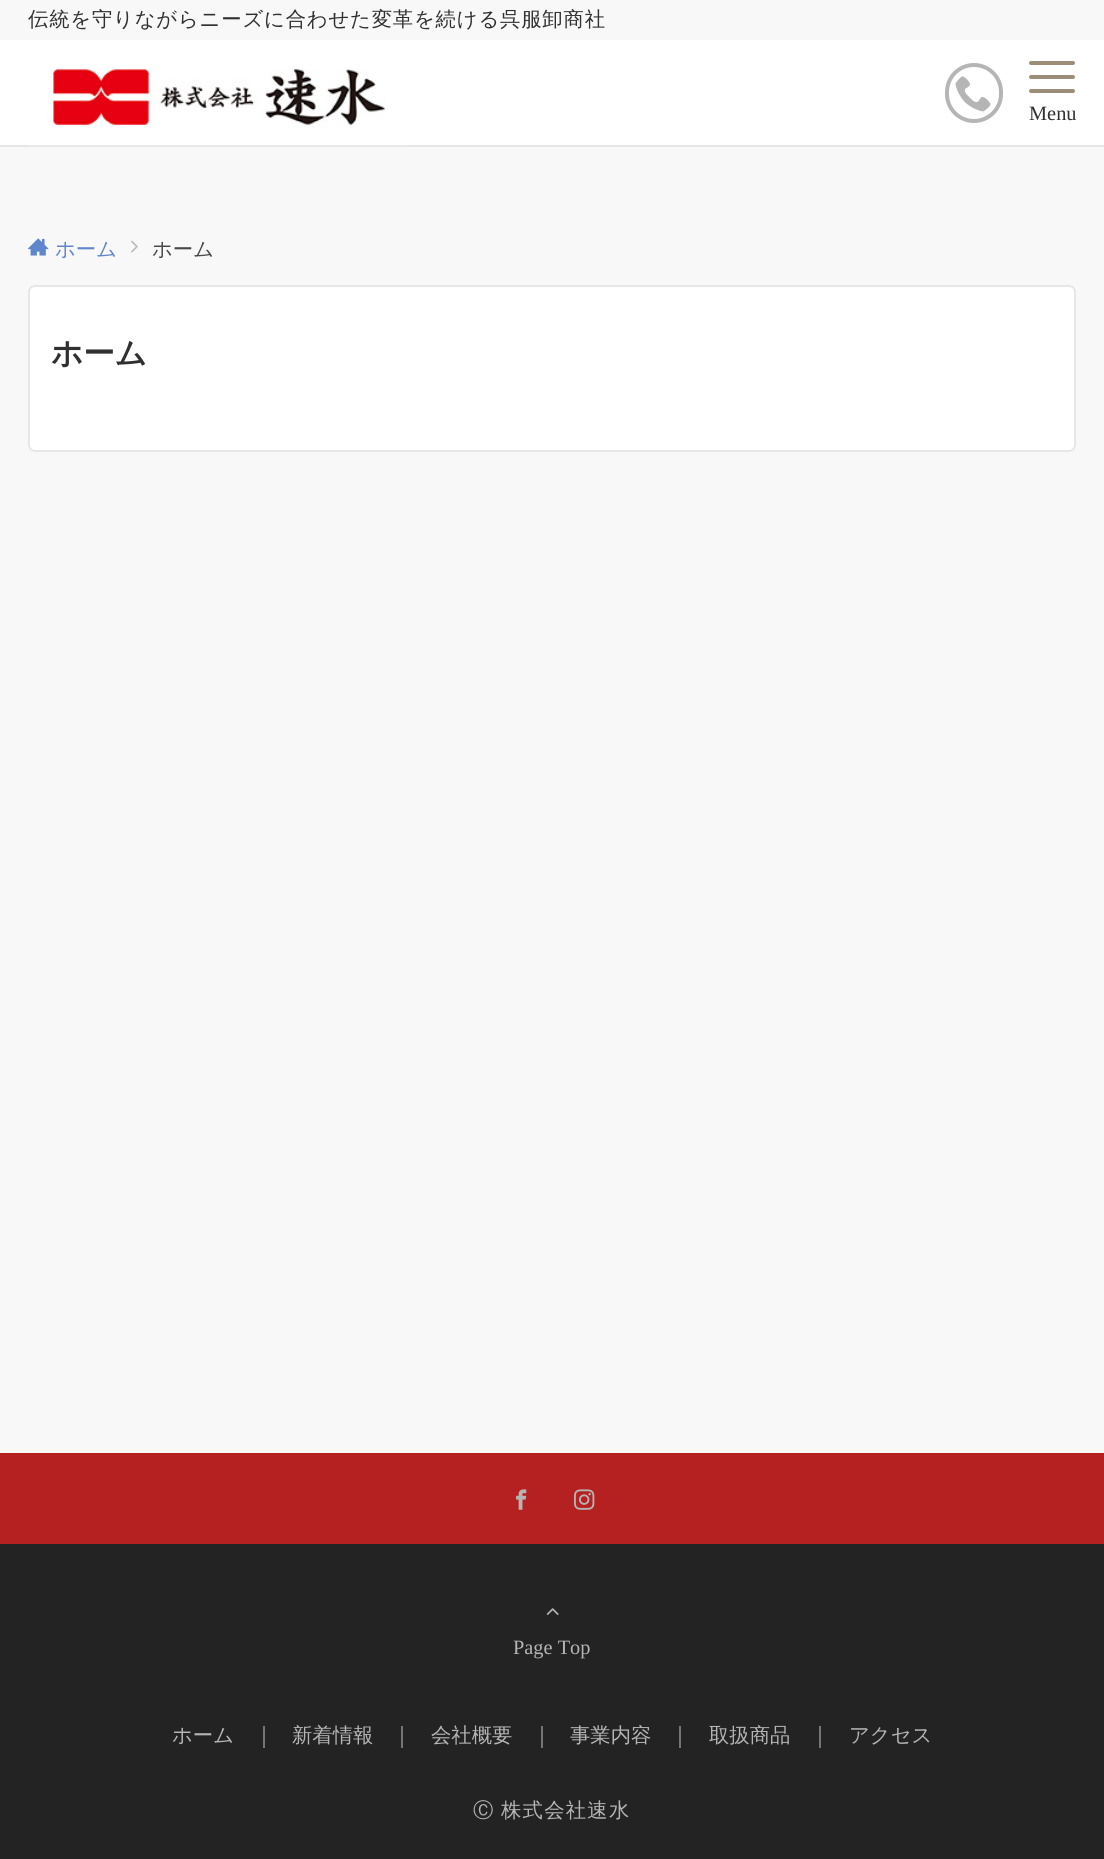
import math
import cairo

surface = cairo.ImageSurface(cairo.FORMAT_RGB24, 1104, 1859)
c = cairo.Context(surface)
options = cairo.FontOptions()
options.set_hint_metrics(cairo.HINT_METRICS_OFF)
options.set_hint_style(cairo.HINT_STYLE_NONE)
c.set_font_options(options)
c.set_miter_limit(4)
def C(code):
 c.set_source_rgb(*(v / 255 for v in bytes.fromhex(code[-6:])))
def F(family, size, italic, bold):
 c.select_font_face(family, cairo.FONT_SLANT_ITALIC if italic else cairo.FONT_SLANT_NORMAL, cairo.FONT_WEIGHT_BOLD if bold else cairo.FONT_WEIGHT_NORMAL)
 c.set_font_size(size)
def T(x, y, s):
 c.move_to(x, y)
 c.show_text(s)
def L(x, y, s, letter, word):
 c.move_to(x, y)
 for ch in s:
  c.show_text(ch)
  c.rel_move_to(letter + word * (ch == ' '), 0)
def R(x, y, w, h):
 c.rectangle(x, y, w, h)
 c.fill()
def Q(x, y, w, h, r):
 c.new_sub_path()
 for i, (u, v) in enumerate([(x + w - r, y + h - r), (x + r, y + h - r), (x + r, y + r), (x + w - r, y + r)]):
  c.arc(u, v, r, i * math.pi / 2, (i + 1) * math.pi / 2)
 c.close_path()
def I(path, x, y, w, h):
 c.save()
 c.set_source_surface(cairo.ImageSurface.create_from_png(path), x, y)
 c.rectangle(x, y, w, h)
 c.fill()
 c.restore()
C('f8f8f8')
c.paint()
F('WenQuanYi Zen Hei Medium',20.35,0,0)
C('303030')
L(28,26,'伝統を守りながらニーズに合わせた変革を続ける呉服卸商社',.8,0)
C('ffffff')
R(0,40,1104,105)
C('e6e6e6')
R(0,145,1104,2)
I('1.png',28,69,380,77)
Q(947,65,54,56,27)
C('b5b5b5')
c.set_line_width(4)
c.stroke()
I('2.png',955,76,36,36)
C('9b8d77')
Q(1029,61,46,4,2)
c.fill()
Q(1029,75,46,4,2)
c.fill()
Q(1029,89,46,4,2)
c.fill()
F('Liberation Serif',20.35,0,0)
C('303030')
T(1029,120,'Menu')
I('3.png',28,238,21,18)
F('WenQuanYi Zen Hei Medium',20.35,0,0)
C('5f85cc')
T(55,256,'ホーム')
I('4.png',131,240,7,13)
C('484848')
T(152,256,'ホーム')
C('ffffff')
Q(29,286,1046,165,6)
c.fill_preserve()
C('e5e7e8')
c.set_line_width(2)
c.stroke()
F('WenQuanYi Zen Hei',31.5,0,1)
C('303030')
T(51,364,'ホーム')
C('232323')
R(0,1544,1104,315)
C('b52020')
R(0,1453,1104,91)
I('5.png',516,1489,11,21)
I('6.png',574,1489,21,21)
I('7.png',546,1608,13,7)
F('Liberation Serif',20.35,0,0)
C('b5b5b5')
T(513,1654,'Page Top')
F('WenQuanYi Zen Hei Medium',20.35,0,0)
T(172,1742,'ホーム')
C('757575')
R(263,1726,2,22)
C('b5b5b5')
T(292,1742,'新着情報')
C('757575')
R(401,1726,2,22)
C('b5b5b5')
T(431,1742,'会社概要')
C('757575')
R(541,1726,2,22)
C('b5b5b5')
T(570,1742,'事業内容')
C('757575')
R(679,1726,2,22)
C('b5b5b5')
T(709,1742,'取扱商品')
C('757575')
R(819,1726,2,22)
C('b5b5b5')
T(849,1742,'アクセス')
L(473,1817,'Ⓒ 株式会社速水',1.25,-1)
surface.write_to_png('o.png')
